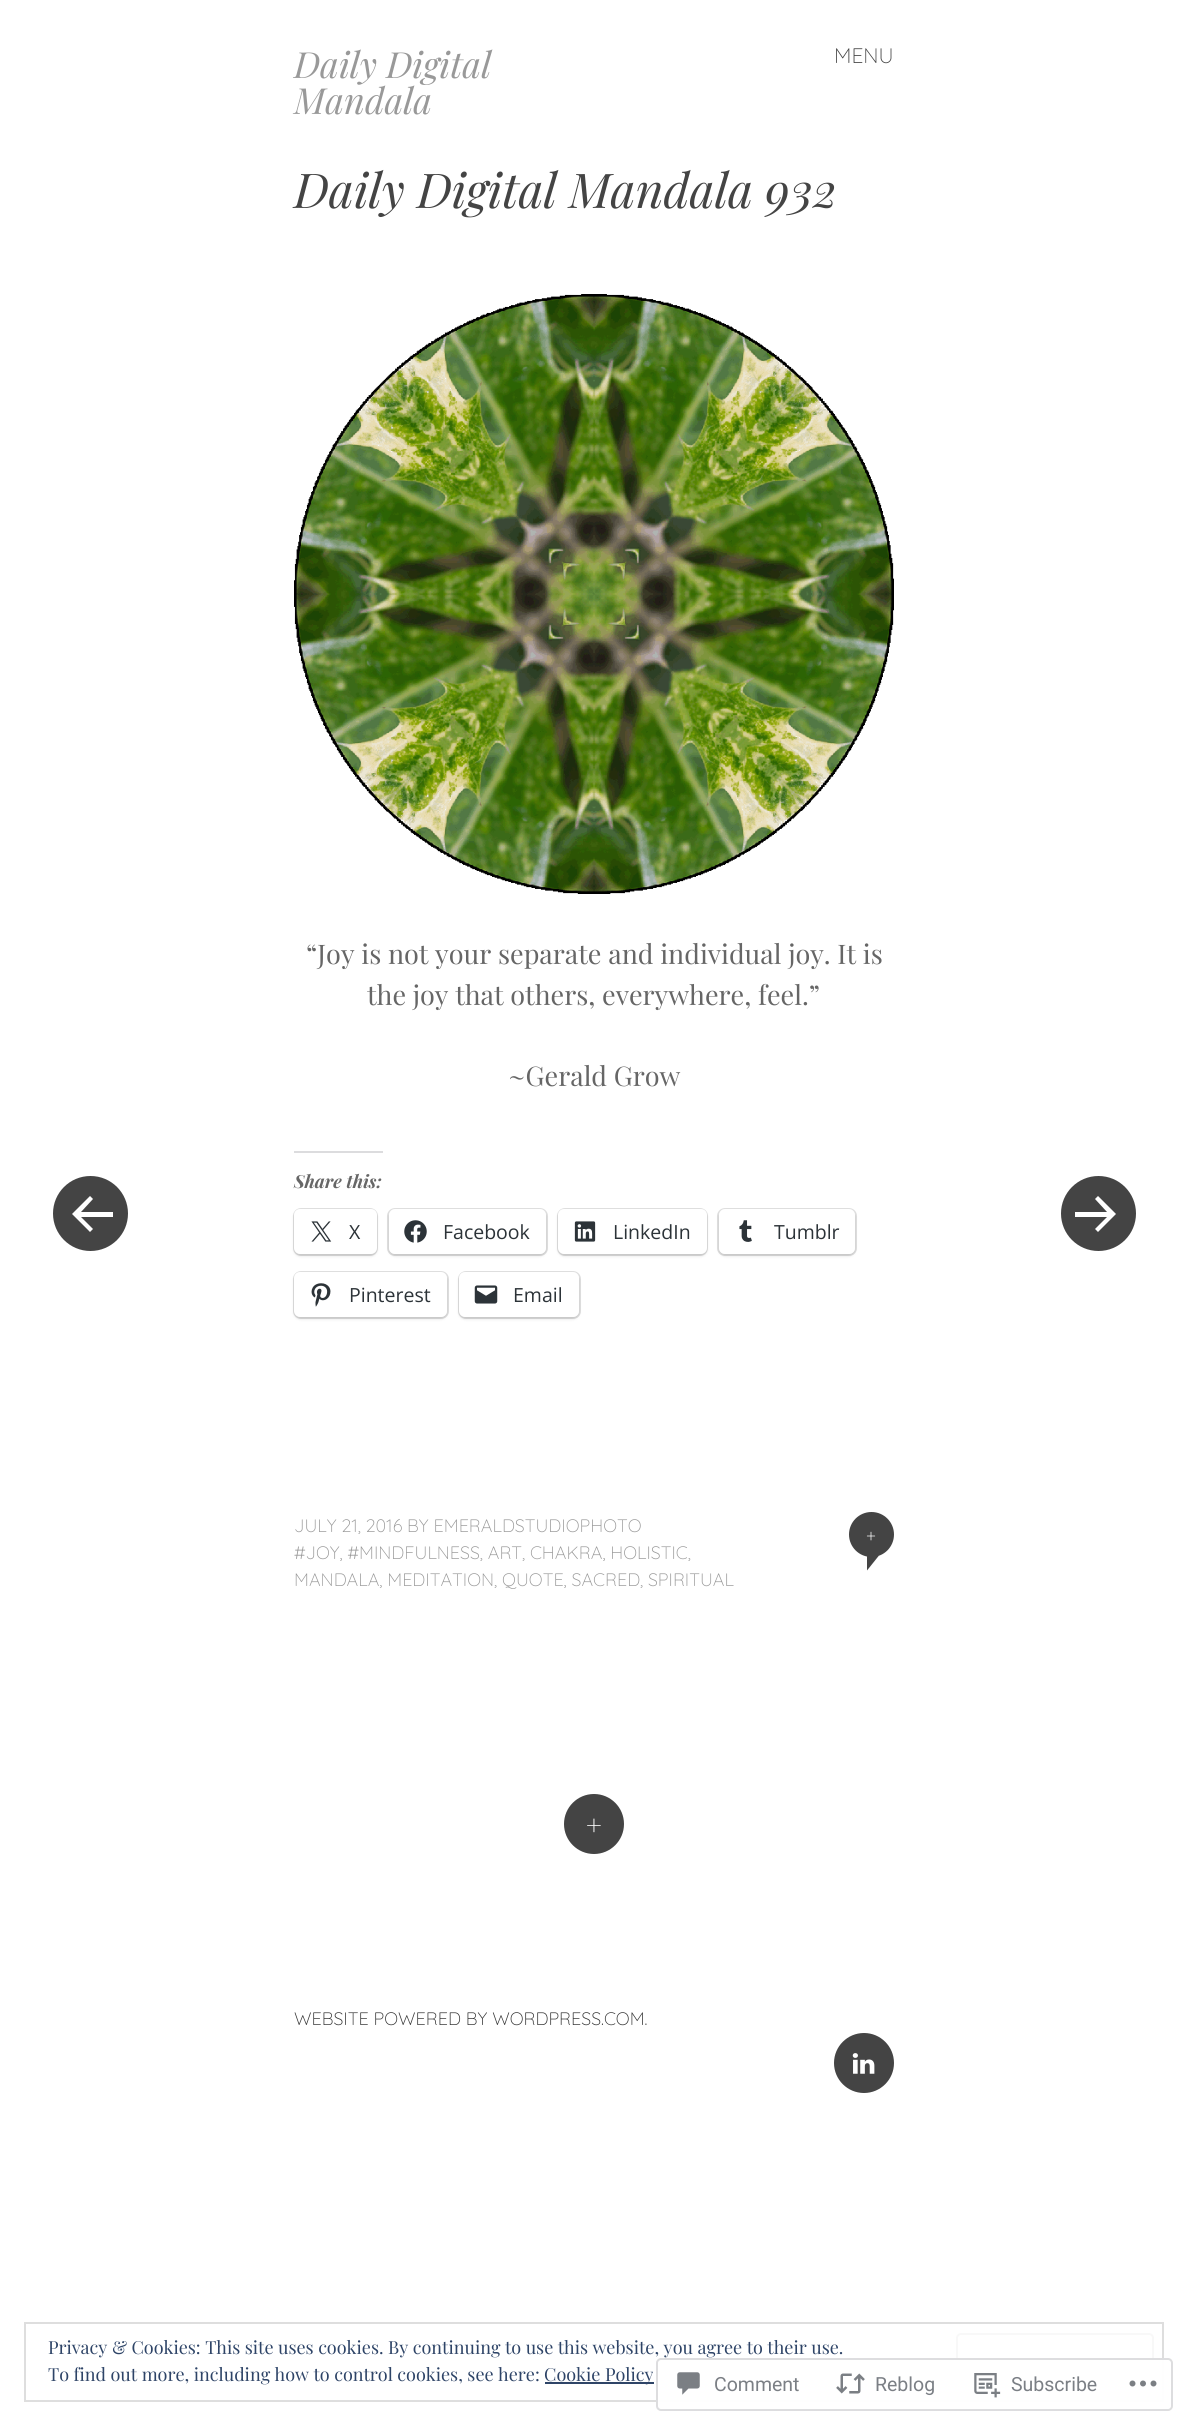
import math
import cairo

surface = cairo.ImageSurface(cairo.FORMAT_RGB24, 1188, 2425)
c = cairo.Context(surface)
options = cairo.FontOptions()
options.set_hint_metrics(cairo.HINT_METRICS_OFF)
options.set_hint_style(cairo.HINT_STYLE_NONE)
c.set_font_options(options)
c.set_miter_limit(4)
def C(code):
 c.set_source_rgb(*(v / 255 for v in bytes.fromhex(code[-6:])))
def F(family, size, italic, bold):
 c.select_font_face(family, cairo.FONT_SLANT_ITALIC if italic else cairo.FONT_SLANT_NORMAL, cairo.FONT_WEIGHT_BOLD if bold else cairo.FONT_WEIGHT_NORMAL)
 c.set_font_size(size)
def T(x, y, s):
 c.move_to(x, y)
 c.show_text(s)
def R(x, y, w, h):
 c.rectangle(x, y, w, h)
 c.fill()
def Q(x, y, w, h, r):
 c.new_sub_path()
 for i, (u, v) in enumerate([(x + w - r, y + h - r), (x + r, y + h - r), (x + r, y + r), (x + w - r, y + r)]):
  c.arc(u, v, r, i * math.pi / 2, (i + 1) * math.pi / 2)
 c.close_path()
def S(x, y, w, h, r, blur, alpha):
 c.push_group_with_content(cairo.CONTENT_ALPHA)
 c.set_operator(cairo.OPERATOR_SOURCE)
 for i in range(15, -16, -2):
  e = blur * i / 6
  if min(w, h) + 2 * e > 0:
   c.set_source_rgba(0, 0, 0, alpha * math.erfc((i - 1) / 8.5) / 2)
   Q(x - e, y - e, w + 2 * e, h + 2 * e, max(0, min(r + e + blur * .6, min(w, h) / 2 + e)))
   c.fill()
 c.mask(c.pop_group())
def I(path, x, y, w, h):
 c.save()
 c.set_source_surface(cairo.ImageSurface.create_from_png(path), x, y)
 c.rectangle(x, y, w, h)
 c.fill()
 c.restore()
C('ffffff')
c.paint()
F('Playfair Display',36,1,0)
C('999999')
T(294,78,'Daily Digital')
T(294,114,'Mandala')
F('Quicksand Light',21,0,0)
C('444444')
T(834,63,'MENU')
F('Playfair Display',48,1,0)
T(294,208,'Daily Digital Mandala 932')
I('1.png',294,294,600,600)
F('Playfair Display',27,0,0)
C('666666')
T(306,964,'“Joy is not your separate and individual joy. It is')
T(367,1005,'the joy that others, everywhere, feel.”')
T(508,1086,'~Gerald Grow')
C('dcdcde')
R(294,1151,89,2)
F('Playfair Display',18,1,1)
C('666666')
T(294,1188,'Share this:')
Q(294,1209,83,46,7)
C('e0e0e0')
c.stroke()
C('000000')
S(294,1211,83,45,6,1.5,.12)
C('ffffff')
Q(294,1209,83,45,6)
c.fill()
I('2.png',311,1221,21,21)
F('Open Sans',19.5,0,0)
C('2c3338')
T(349,1239,'X')
Q(388,1209,159,46,7)
C('e0e0e0')
c.stroke()
C('000000')
S(389,1211,157,45,6,1.5,.12)
C('ffffff')
Q(389,1209,157,45,6)
c.fill()
I('3.png',404,1220,23,23)
C('2c3338')
T(443,1239,'Facebook')
Q(558,1209,149,46,7)
C('e0e0e0')
c.stroke()
C('000000')
S(558,1211,149,45,6,1.5,.12)
C('ffffff')
Q(558,1209,149,45,6)
c.fill()
I('4.png',574,1221,22,21)
C('2c3338')
T(613,1239,'LinkedIn')
Q(718,1209,138,46,7)
C('e0e0e0')
c.stroke()
C('000000')
S(719,1211,136,45,6,1.5,.12)
C('ffffff')
Q(719,1209,136,45,6)
c.fill()
I('5.png',739,1220,13,22)
C('2c3338')
T(774,1239,'Tumblr')
Q(294,1272,154,46,7)
C('e0e0e0')
c.stroke()
C('000000')
S(294,1274,153,45,6,1.5,.12)
C('ffffff')
Q(294,1272,153,45,6)
c.fill()
I('6.png',311,1283,20,24)
C('2c3338')
T(349,1302,'Pinterest')
Q(459,1272,121,46,7)
C('e0e0e0')
c.stroke()
C('000000')
S(459,1274,120,45,6,1.5,.12)
C('ffffff')
Q(459,1272,120,45,6)
c.fill()
I('7.png',474,1285,24,19)
C('2c3338')
T(513,1302,'Email')
F('Quicksand Light',18,0,0)
C('999999')
T(294,1532,'JULY 21, 2016 BY EMERALDSTUDIOPHOTO')
T(294,1559,'#JOY, #MINDFULNESS, ART, CHAKRA, HOLISTIC,')
T(294,1586,'MANDALA, MEDITATION, QUOTE, SACRED, SPIRITUAL')
C('444444')
c.new_path()
c.move_to(867,1555.5)
c.line_to(879,1555.5)
c.line_to(867,1570.5)
c.close_path()
c.fill()
c.arc(871.5,1534.5,22.5,0,2 * math.pi)
c.fill()
C('ffffff')
T(866,1542,'+')
C('444444')
c.new_path()
c.arc(90.5,1213.5,37.5,0,2 * math.pi)
c.fill()
C('ffffff')
c.new_path()
c.move_to(72,1214)
c.line_to(90,1232)
c.line_to(93,1229)
c.line_to(81,1217)
c.line_to(113,1217)
c.line_to(113,1212)
c.line_to(81,1212)
c.line_to(93,1199)
c.line_to(90,1196)
c.close_path()
c.fill()
C('444444')
c.arc(1098.5,1213.5,37.5,0,2 * math.pi)
c.fill()
C('ffffff')
c.new_path()
c.move_to(1116,1214)
c.line_to(1098,1232)
c.line_to(1095,1229)
c.line_to(1107,1217)
c.line_to(1075,1217)
c.line_to(1075,1212)
c.line_to(1107,1212)
c.line_to(1095,1199)
c.line_to(1098,1196)
c.close_path()
c.fill()
C('444444')
c.arc(594,1824,30,0,2 * math.pi)
c.fill()
F('Playfair Display',27,0,0)
C('ffffff')
T(586,1835,'+')
F('Quicksand Light',18,0,0)
C('333333')
T(294,2025,'WEBSITE POWERED BY WORDPRESS.COM.')
C('444444')
c.new_path()
c.arc(864,2063,30,0,2 * math.pi)
c.fill()
I('8.png',852,2053,23,21)
c.rectangle(25,2323,1138,78)
C('dedede')
c.stroke()
F('Playfair Display',18,0,0)
C('2e4467')
T(48,2354,'Privacy & Cookies: This site uses cookies. By continuing to use this website, you agree to their use.')
Q(957,2334,196,56,4)
C('f8f8f8')
c.stroke()
C('2e4467')
T(48,2381,'To find out more, including how to control cookies, see here:')
R(545,2382,109,2)
T(544,2381,'Cookie Policy')
c.set_source_rgba(1,1,1,0.98)
Q(657,2359,515,51,4)
c.fill_preserve()
C('dddddf')
c.stroke()
I('9.png',677,2372,23,23)
F('Roboto',19.5,0,0)
C('7b7f85')
T(714,2391,'Comment')
I('10.png',836,2373,29,21)
T(875,2391,'Reblog')
I('11.png',974,2373,27,25)
T(1011,2391,'Subscribe')
I('12.png',1129,2380,28,7)
surface.write_to_png('o.png')
